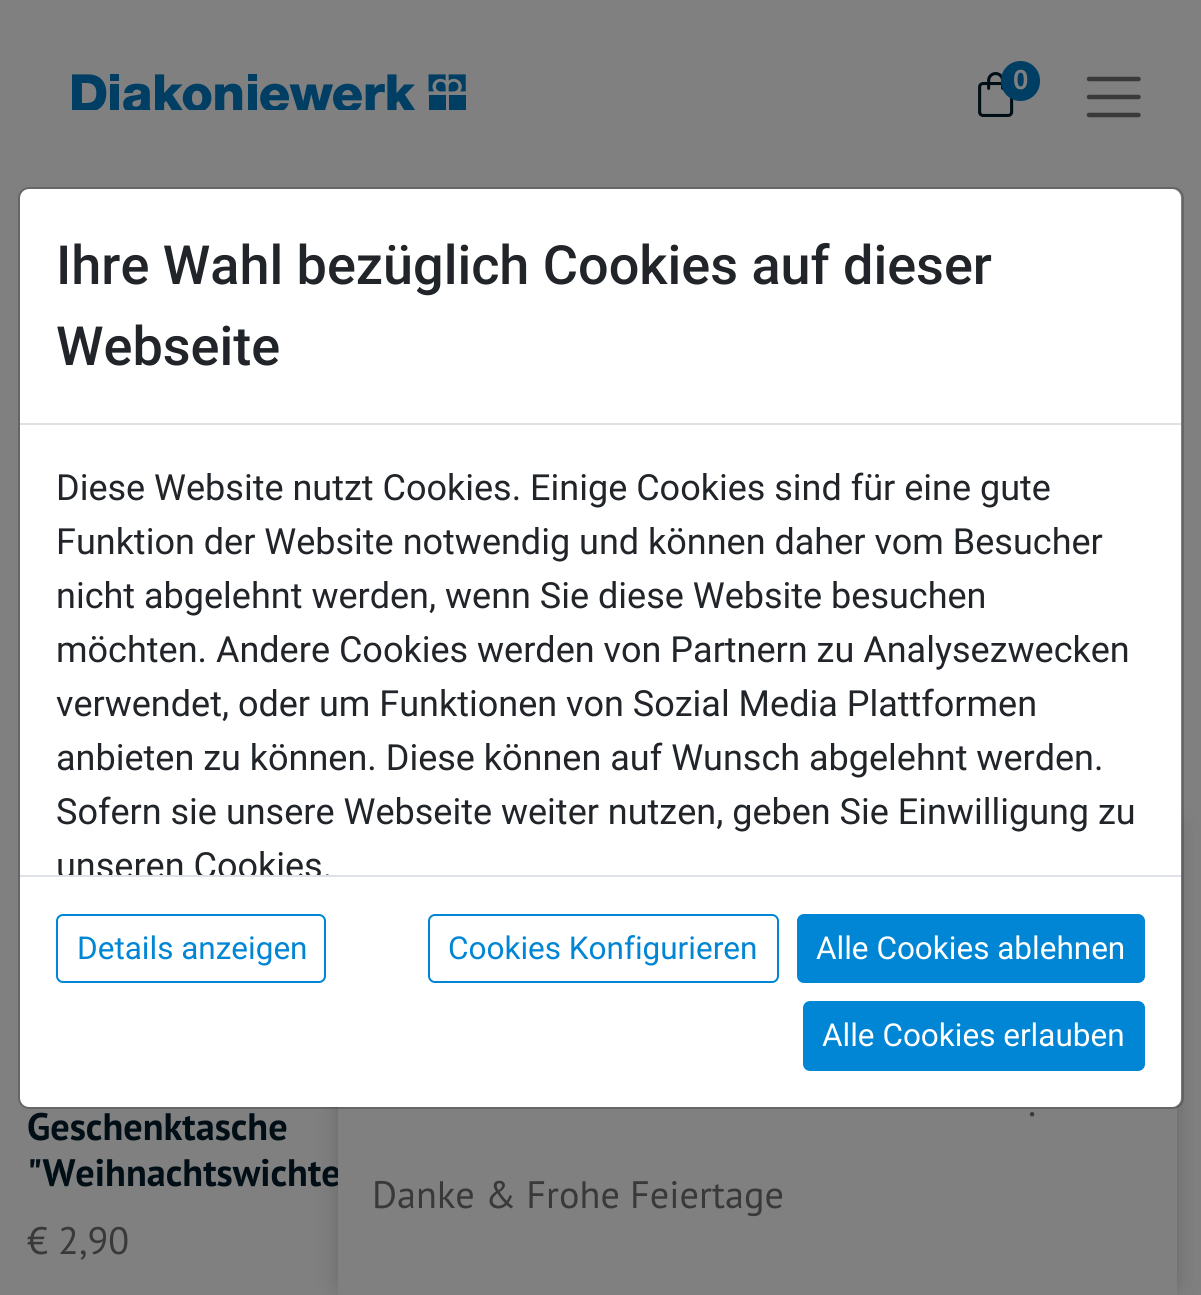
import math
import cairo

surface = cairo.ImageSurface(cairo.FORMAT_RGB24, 1201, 1295)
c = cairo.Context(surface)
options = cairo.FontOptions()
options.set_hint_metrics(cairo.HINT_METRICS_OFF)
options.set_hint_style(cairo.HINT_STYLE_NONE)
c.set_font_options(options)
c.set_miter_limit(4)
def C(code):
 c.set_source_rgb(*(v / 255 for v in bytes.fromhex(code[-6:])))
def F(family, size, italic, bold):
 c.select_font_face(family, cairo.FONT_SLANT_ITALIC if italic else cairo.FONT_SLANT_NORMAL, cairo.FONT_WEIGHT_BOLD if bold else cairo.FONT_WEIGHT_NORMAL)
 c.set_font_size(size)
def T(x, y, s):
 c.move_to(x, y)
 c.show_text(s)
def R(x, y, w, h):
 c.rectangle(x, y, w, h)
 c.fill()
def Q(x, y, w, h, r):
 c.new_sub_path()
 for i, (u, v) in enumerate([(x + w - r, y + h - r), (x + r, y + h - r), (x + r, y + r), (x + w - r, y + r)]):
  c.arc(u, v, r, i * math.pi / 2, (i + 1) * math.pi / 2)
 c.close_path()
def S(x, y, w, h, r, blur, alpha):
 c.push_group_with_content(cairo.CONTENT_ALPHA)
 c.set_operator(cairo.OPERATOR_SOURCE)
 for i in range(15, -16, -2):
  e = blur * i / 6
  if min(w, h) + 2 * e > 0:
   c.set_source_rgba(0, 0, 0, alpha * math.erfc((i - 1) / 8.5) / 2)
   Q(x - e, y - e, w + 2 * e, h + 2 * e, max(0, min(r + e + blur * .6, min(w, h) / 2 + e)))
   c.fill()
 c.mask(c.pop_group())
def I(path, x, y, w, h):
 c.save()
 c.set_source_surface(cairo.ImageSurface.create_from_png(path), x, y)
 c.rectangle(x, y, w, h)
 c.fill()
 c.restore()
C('808080')
c.paint()
I('1.png',72,74,394,36)
I('2.png',978,72,36,45)
C('003e64')
Q(1001,61,39,40,19.5)
c.fill()
F('PT Sans',27,0,1)
C('808080')
T(1013,89,'0')
c.new_path()
c.move_to(1089,79)
c.line_to(1138.5,79)
c.move_to(1089,97)
c.line_to(1138.5,97)
c.move_to(1089,115)
c.line_to(1138.5,115)
C('3a3a3a')
c.set_line_width(4.5)
c.set_line_cap(cairo.LINE_CAP_ROUND)
c.stroke()
C('666666')
S(338,815,839,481,16,11,1)
F('PT Sans',38.25,0,1)
C('010e16')
T(27,1186,'"Weihnachtswichte')
C('808080')
R(338,1105,839,190)
C('ffffff')
Q(20,189,1161,918,9)
c.fill()
Q(19,188,1164,920,10)
c.set_source_rgba(0,0,0,0.2)
c.set_line_width(2)
c.set_line_cap(cairo.LINE_CAP_BUTT)
c.stroke()
C('dee2e6')
R(20,423,1161,2)
F('Roboto Medium',54,0,0)
C('212529')
T(56,284,'Ihre Wahl bezüglich Cookies auf dieser')
T(56,365,'Webseite')
F('Roboto',36,0,0)
T(56,500,'Diese Website nutzt Cookies. Einige Cookies sind für eine gute')
T(56,554,'Funktion der Website notwendig und können daher vom Besucher')
T(56,608,'nicht abgelehnt werden, wenn Sie diese Website besuchen')
T(56,662,'möchten. Andere Cookies werden von Partnern zu Analysezwecken')
T(56,716,'verwendet, oder um Funktionen von Sozial Media Plattformen')
T(56,770,'anbieten zu können. Diese können auf Wunsch abgelehnt werden.')
T(56,824,'Sofern sie unsere Webseite weiter nutzen, geben Sie Einwilligung zu')
c.save()
c.rectangle(20,425,1161,450)
c.clip()
T(56,878,'unseren Cookies.')
c.restore()
C('dee2e6')
R(20,875,1161,2)
Q(57,915,268,67,6)
C('0086d4')
c.stroke()
F('Roboto',31.5,0,0)
T(77,959,'Details anzeigen')
Q(429,915,349,67,6)
c.stroke()
T(448,959,'Cookies Konfigurieren')
Q(798,915,346,67,6)
c.fill_preserve()
c.stroke()
C('ffffff')
T(816,959,'Alle Cookies ablehnen')
C('0086d4')
Q(804,1002,340,68,6)
c.fill_preserve()
c.stroke()
C('ffffff')
T(822,1046,'Alle Cookies erlauben')
F('PT Sans',38.25,0,1)
C('010e16')
T(27,1140,'Geschenktasche')
F('PT Sans',38.25,0,0)
C('393939')
T(27,1254,'€ 2,90')
T(1028,1116,'.')
T(372,1208,'Danke & Frohe Feiertage')
surface.write_to_png('o.png')
